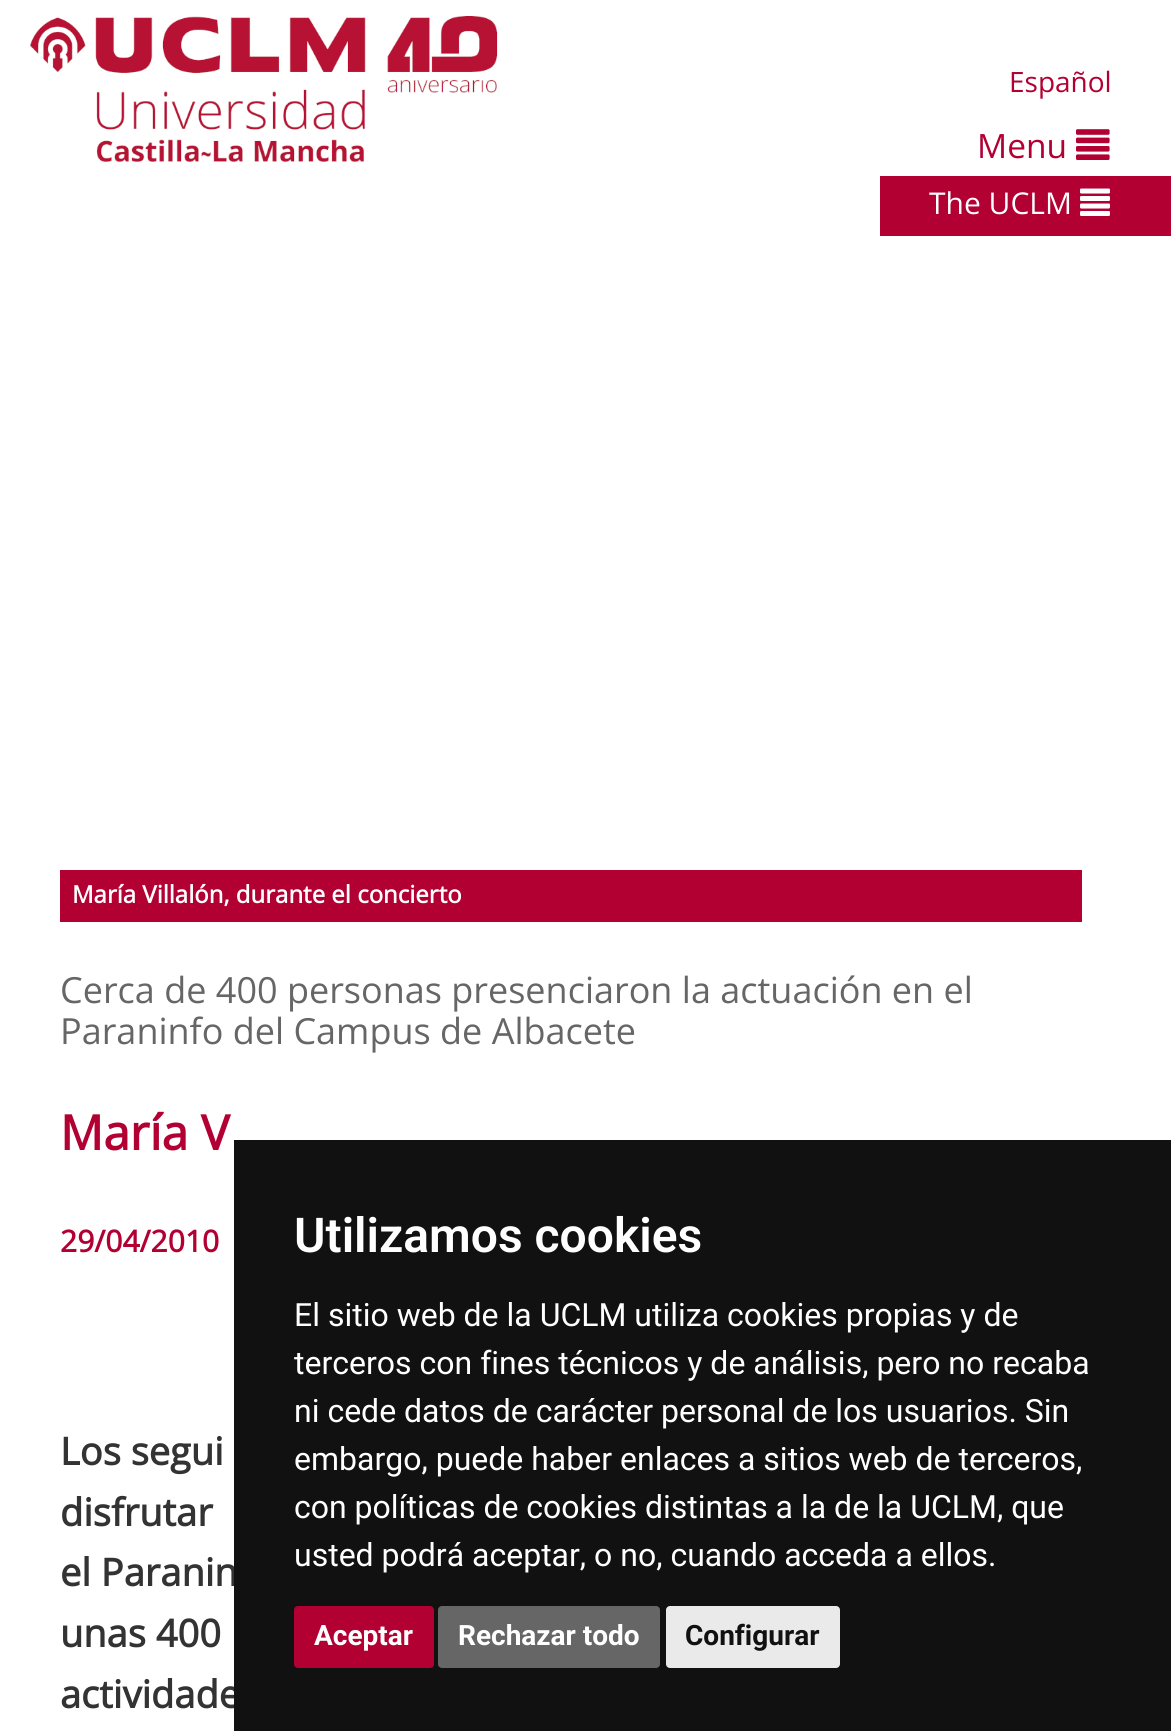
import math
import cairo

surface = cairo.ImageSurface(cairo.FORMAT_RGB24, 1171, 1731)
c = cairo.Context(surface)
options = cairo.FontOptions()
options.set_hint_metrics(cairo.HINT_METRICS_OFF)
options.set_hint_style(cairo.HINT_STYLE_NONE)
c.set_font_options(options)
c.set_miter_limit(4)
def C(code):
 c.set_source_rgb(*(v / 255 for v in bytes.fromhex(code[-6:])))
def F(family, size, italic, bold):
 c.select_font_face(family, cairo.FONT_SLANT_ITALIC if italic else cairo.FONT_SLANT_NORMAL, cairo.FONT_WEIGHT_BOLD if bold else cairo.FONT_WEIGHT_NORMAL)
 c.set_font_size(size)
def T(x, y, s):
 c.move_to(x, y)
 c.show_text(s)
def R(x, y, w, h):
 c.rectangle(x, y, w, h)
 c.fill()
def Q(x, y, w, h, r):
 c.new_sub_path()
 for i, (u, v) in enumerate([(x + w - r, y + h - r), (x + r, y + h - r), (x + r, y + r), (x + w - r, y + r)]):
  c.arc(u, v, r, i * math.pi / 2, (i + 1) * math.pi / 2)
 c.close_path()
def I(path, x, y, w, h):
 c.save()
 c.set_source_surface(cairo.ImageSurface.create_from_png(path), x, y)
 c.rectangle(x, y, w, h)
 c.fill()
 c.restore()
C('ffffff')
c.paint()
I('1.png',30,16,468,146)
F('Open Sans',28,0,0)
C('b30033')
T(1009,92,'Español')
F('Open Sans',33.5,0,0)
T(977,158,'Menu')
I('2.png',1076,129,34,31)
R(880,176,291,60)
F('Open Sans',30,0,0)
C('ffffff')
T(929,214,'The UCLM')
I('3.png',1080,188,30,28)
C('b30033')
R(60,870,1022,52)
F('Open Sans',24,0,1)
C('ffffff')
T(72,903,'María Villalón, durante el concierto')
F('Open Sans',36,0,0)
C('666666')
T(60,1003,'Cerca de 400 personas presenciaron la actuación en el')
T(60,1044,'Paraninfo del Campus de Albacete')
F('Open Sans',48,0,1)
C('b30033')
T(60,1150,'María V')
F('Open Sans',30,0,1)
T(60,1252,'29/04/2010')
F('Open Sans',38,0,1)
C('333333')
T(60,1465,'Los segui')
T(60,1526,'disfrutar')
T(60,1586,'el Paranin')
T(60,1647,'unas 400')
T(60,1708,'actividade')
C('111111')
R(234,1140,937,591)
F('Roboto SemiBold',48,0,0)
C('ffffff')
T(294,1252,'Utilizamos cookies')
F('Roboto',32,0,0)
T(294,1326,'El sitio web de la UCLM utiliza cookies propias y de')
T(294,1374,'terceros con fines técnicos y de análisis, pero no recaba')
T(294,1422,'ni cede datos de carácter personal de los usuarios. Sin')
T(294,1470,'embargo, puede haber enlaces a sitios web de terceros,')
T(294,1518,'con políticas de cookies distintas a la de la UCLM, que')
T(294,1566,'usted podrá aceptar, o no, cuando acceda a ellos.')
C('b30033')
Q(294,1606,140,62,4)
c.fill()
F('Roboto',28,0,1)
C('ffffff')
T(314,1645,'Aceptar')
C('666666')
Q(438,1606,222,62,4)
c.fill()
C('ffffff')
T(458,1645,'Rechazar todo')
C('eaeaea')
Q(666,1606,174,62,4)
c.fill()
C('111111')
T(685,1645,'Configurar')
surface.write_to_png('o.png')
